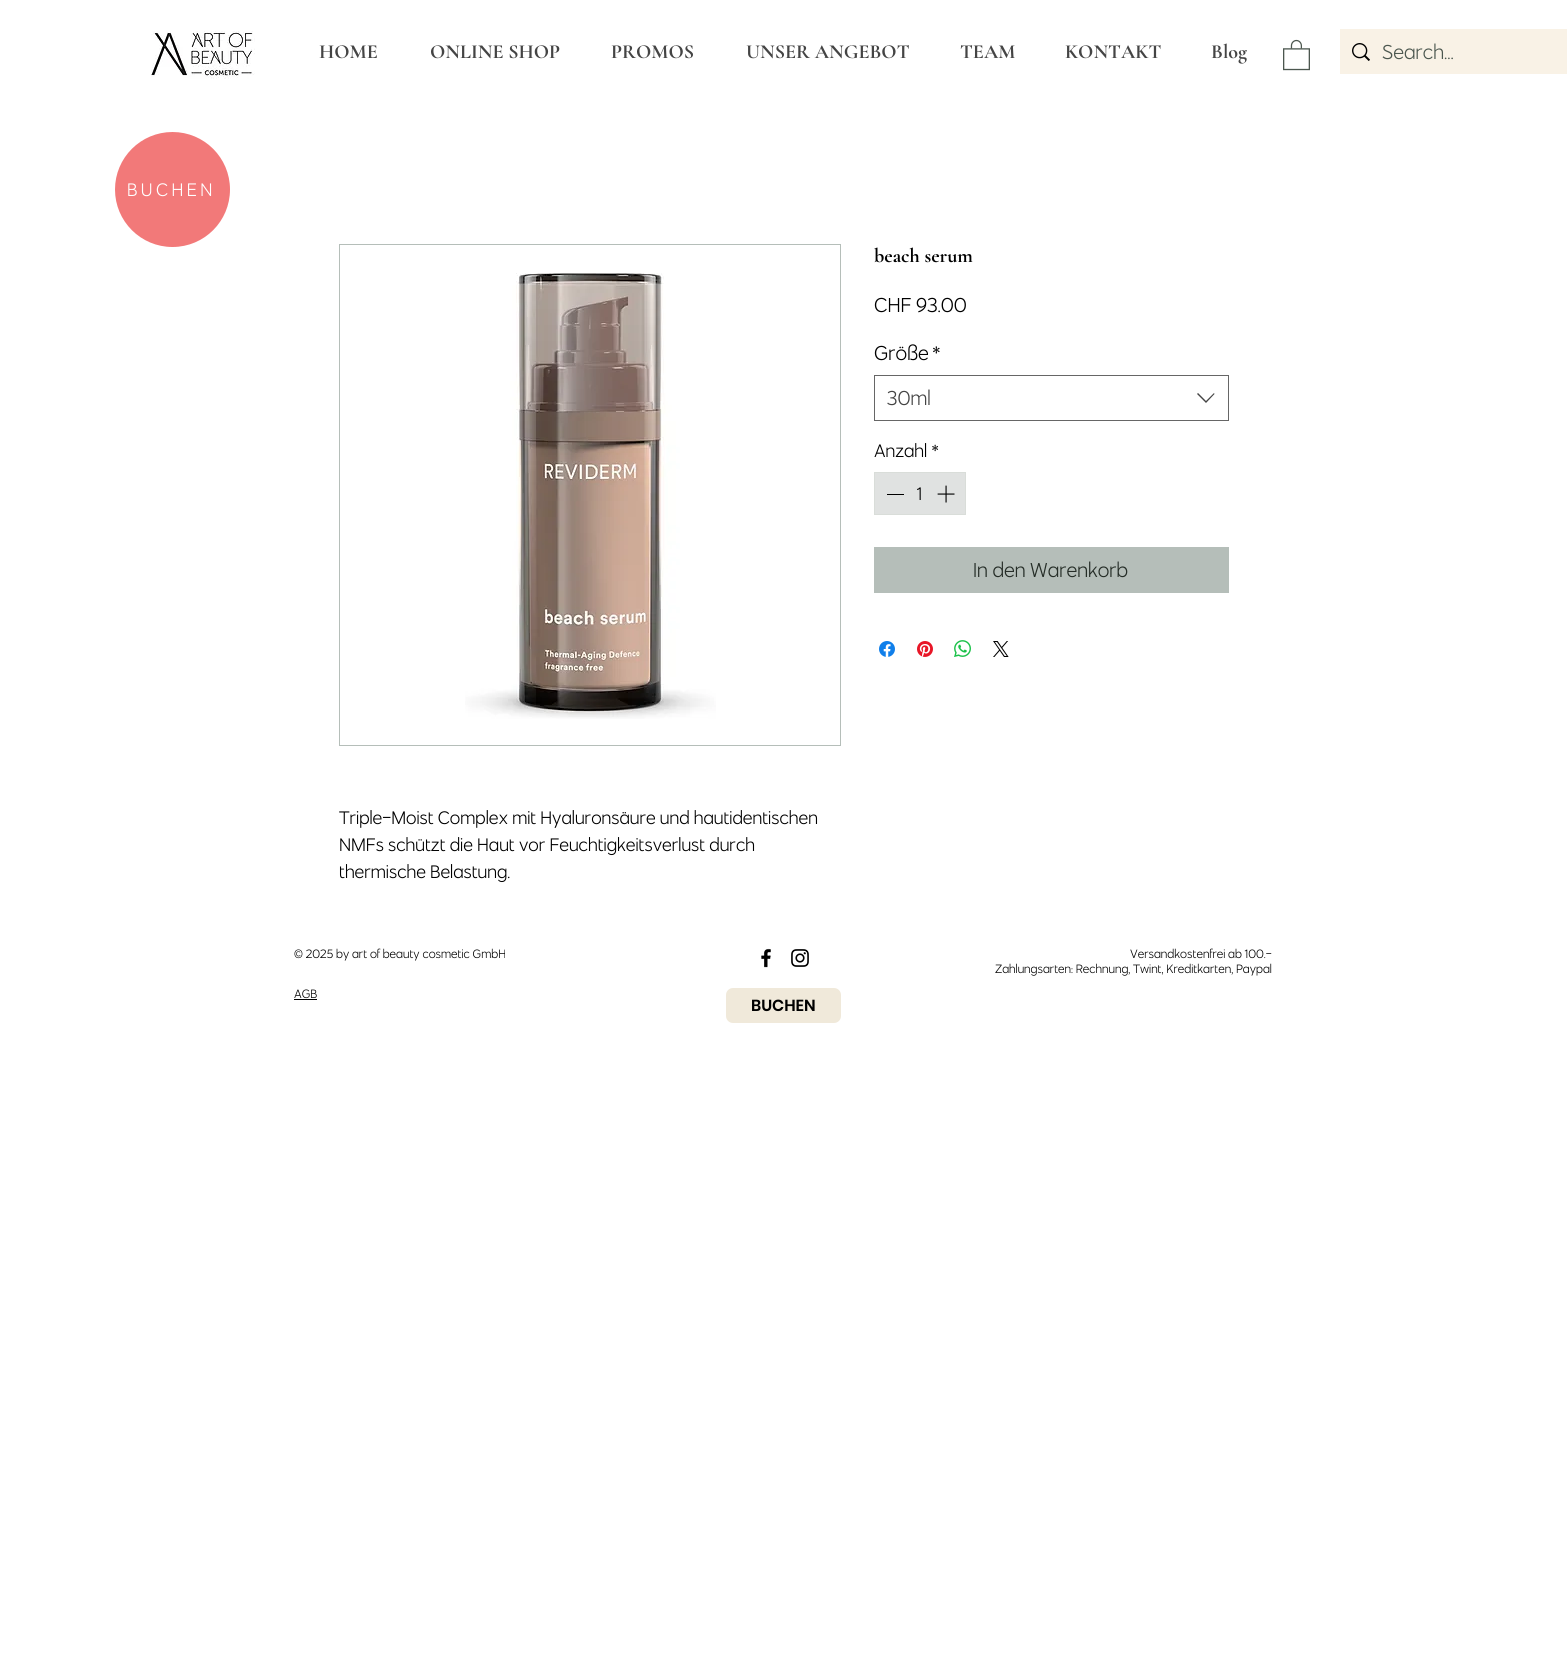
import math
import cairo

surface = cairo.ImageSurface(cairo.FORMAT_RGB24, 1567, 1662)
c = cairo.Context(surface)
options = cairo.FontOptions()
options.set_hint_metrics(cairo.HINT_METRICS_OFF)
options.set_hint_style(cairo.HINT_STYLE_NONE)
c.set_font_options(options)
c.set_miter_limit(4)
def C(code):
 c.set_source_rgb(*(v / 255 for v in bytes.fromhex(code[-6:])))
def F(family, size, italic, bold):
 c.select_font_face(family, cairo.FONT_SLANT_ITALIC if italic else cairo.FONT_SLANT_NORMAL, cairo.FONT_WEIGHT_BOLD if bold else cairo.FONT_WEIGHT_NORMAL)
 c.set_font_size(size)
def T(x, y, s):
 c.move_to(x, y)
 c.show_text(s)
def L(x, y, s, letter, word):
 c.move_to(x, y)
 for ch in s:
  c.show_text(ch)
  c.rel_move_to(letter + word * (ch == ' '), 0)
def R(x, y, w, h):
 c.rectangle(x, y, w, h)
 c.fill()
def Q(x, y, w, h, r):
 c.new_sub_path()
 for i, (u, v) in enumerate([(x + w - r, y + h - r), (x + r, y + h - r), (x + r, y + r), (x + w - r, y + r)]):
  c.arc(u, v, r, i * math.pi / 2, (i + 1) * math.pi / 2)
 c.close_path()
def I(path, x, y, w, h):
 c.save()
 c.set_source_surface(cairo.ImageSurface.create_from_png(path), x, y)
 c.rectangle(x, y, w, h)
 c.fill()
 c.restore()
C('ffffff')
c.paint()
I('1.png',151,31,104,48)
F('Cormorant Garamond',20,0,1)
C('444444')
T(319,58,'HOME')
T(430,58,'ONLINE SHOP')
T(611,58,'PROMOS')
T(746,58,'UNSER ANGEBOT')
T(960,58,'TEAM')
T(1065,58,'KONTAKT')
T(1211,58,'Blog')
I('2.png',1283,39,27,32)
C('f9f2e6')
R(1340,29,227,45)
I('3.png',1352,43,18,18)
F('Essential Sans',20,0,0)
C('4c574f')
T(1382,59,'Search...')
C('f27979')
c.new_path()
c.arc(172.5,189.5,57.5,0,2 * math.pi)
c.fill()
F('Essential Sans',18,0,0)
C('ffffff')
L(127,196,'BUCHEN',3.5,0)
F('Cormorant Garamond',20,0,1)
C('000000')
T(874,262,'beach serum')
F('Essential Sans',20,0,0)
T(874,312,'CHF 93.00')
T(874,360,'Größe')
T(932,360,'*')
c.rectangle(874.5,375.5,354,45)
C('666666')
c.set_line_width(1)
c.stroke()
C('444444')
T(887,405,'30ml')
c.set_fill_rule(cairo.FILL_RULE_EVEN_ODD)
c.new_path()
c.move_to(1214,393)
c.line_to(1214.5,394)
c.line_to(1206,403)
c.line_to(1197,394)
c.line_to(1198,393)
c.line_to(1206,401)
c.close_path()
c.fill()
F('Essential Sans',18,0,0)
C('000000')
T(874,457,'Anzahl *')
C('e0e2e1')
c.rectangle(874.5,472.5,91,42)
c.fill_preserve()
C('d9ddd9')
c.stroke()
C('000000')
R(887,494,17,1)
T(917,500,'1')
I('4.png',937,485,18,18)
C('b5beb9')
R(874,547,355,46)
F('Essential Sans',20,0,0)
C('252d27')
T(973,577,'In den Warenkorb')
I('5.png',879,641,16,16)
I('6.png',917,641,16,16)
I('7.png',954,640,17,17)
I('8.png',993,641,16,16)
c.rectangle(339.5,244.5,501,501)
C('b5beb9')
c.stroke()
I('9.png',465,273,251,446)
F('Essential Sans',18,0,0)
C('000000')
T(339,824,'Triple-Moist Complex mit Hyaluronsäure und hautidentischen')
T(339,851,'NMFs schützt die Haut vor Feuchtigkeitsverlust durch')
T(339,878,'thermische Belastung.')
F('Essential Sans',12,0,0)
T(294,958,'© 2025 by art of beauty cosmetic GmbH')
I('10.png',761,948,10,20)
I('11.png',791,949,18,18)
T(1130,958,'Versandkostenfrei ab 100.-')
T(995,973,'Zahlungsarten: Rechnung, Twint, Kreditkarten, Paypal')
T(294,998,'AGB')
R(294,999,23,1)
C('f0e9da')
Q(726,988,115,35,7)
c.fill()
F('Poppins SemiBold',16,0,0)
C('000000')
T(751,1011,'BUCHEN')
surface.write_to_png('o.png')
